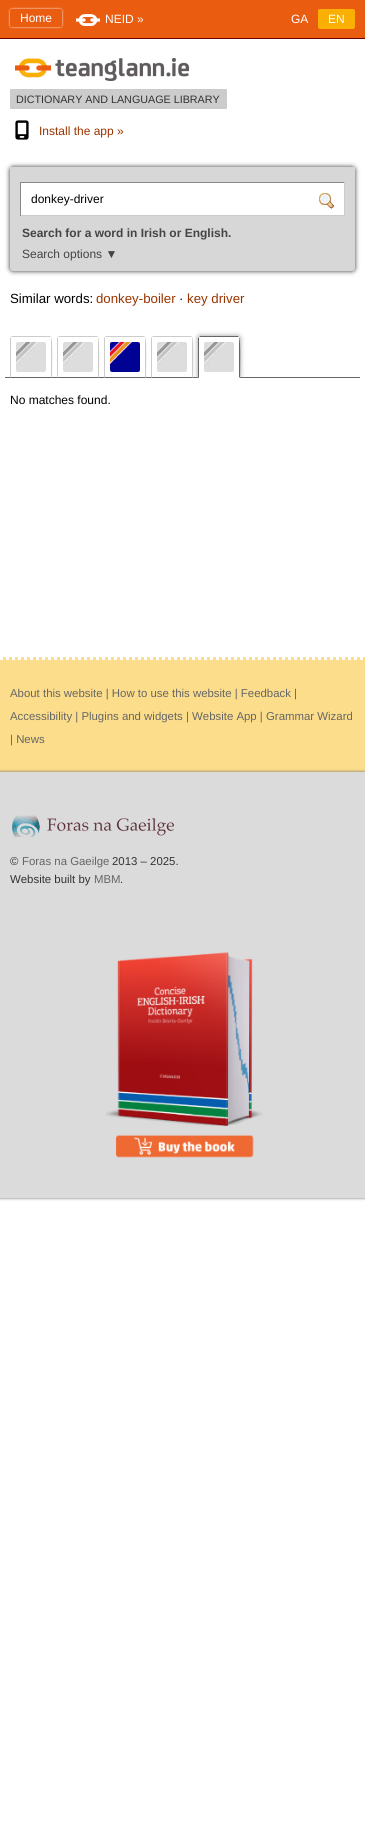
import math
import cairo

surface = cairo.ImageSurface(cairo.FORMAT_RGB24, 365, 1835)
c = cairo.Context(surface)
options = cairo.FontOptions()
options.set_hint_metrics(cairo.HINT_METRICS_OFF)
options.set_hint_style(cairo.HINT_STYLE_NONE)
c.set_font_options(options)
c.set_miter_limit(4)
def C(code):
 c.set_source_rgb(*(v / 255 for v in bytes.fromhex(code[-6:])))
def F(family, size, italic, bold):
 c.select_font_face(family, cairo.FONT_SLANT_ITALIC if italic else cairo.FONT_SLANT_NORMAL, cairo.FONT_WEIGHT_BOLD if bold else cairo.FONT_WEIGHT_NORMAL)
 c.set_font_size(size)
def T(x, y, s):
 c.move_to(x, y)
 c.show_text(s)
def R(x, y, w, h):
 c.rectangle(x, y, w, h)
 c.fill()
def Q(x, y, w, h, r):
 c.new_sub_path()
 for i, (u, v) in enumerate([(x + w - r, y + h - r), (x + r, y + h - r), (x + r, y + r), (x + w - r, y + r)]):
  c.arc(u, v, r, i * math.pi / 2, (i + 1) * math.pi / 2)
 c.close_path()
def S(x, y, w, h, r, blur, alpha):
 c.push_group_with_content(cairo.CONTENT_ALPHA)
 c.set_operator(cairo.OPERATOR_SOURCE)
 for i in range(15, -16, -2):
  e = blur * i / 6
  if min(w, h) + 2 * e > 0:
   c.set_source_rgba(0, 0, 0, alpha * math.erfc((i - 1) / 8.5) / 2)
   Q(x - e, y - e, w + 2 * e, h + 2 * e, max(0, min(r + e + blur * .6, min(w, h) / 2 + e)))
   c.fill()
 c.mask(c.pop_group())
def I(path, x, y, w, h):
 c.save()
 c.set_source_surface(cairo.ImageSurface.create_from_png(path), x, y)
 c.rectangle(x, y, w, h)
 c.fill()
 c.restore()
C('ffffff')
c.paint()
C('ea5c0f')
R(0,0,365,38)
C('690202')
R(0,38,365,1)
c.save()
c.set_fill_rule(cairo.FILL_RULE_EVEN_ODD)
c.new_path()
c.move_to(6,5)
c.line_to(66,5)
c.line_to(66,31)
c.line_to(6,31)
c.close_path()
c.move_to(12,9)
c.line_to(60,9)
c.curve_to(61,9,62,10,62,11)
c.line_to(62,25)
c.curve_to(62,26,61,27,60,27)
c.line_to(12,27)
c.curve_to(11,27,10,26,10,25)
c.line_to(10,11)
c.curve_to(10,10,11,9,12,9)
c.close_path()
c.clip()
C('ffffff')
S(10,9,52,18,2,1,1)
c.restore()
F('Liberation Sans',12,0,0)
C('ffffff')
T(20,22,'Home')
I('1.png',76,14,24,12)
T(105,23,'NEID »')
T(291,23,'GA')
C('f9af03')
Q(318,9,37,20,2)
c.fill()
C('ffffff')
T(328,23,'EN')
I('2.png',15,58,174,23)
C('cccccc')
Q(10,89,217,20,1)
c.fill()
F('Liberation Sans',10.75,0,0)
C('333333')
T(16,103,'DICTIONARY AND LANGUAGE LIBRARY')
I('3.png',15,120,14,20)
F('Liberation Sans',12,0,0)
C('993300')
T(39,135,'Install the app »')
C('333333')
S(10,167,345,104,3,2.5,1)
C('d7d7d7')
c.new_path()
c.move_to(10,167)
c.line_to(355,167)
c.line_to(355,268)
c.curve_to(355,269.5,353.5,271,352,271)
c.line_to(13,271)
c.curve_to(11.5,271,10,269.5,10,268)
c.close_path()
c.fill()
C('ffffff')
R(21,183,323,32)
C('888888')
R(20,182,325,1)
C('cccccc')
R(344,182,1,34)
R(20,215,325,1)
C('888888')
R(20,182,1,34)
C('000000')
T(31,203,'donkey-driver')
I('4.png',319,193,16,16)
F('Liberation Sans',12,0,1)
C('444444')
T(22,237,'Search for a word in Irish or English.')
F('Liberation Sans',12,0,0)
T(22,258,'Search options ▼')
F('Liberation Sans',13.25,0,0)
C('000000')
T(10,303,'Similar words:')
C('993300')
T(96,303,'donkey-boiler')
C('000000')
T(179,303,'·')
C('993300')
T(187,303,'key driver')
C('666666')
R(5,377,355,1)
C('cccccc')
c.new_path()
c.move_to(12,336)
c.line_to(11,337)
c.line_to(51,337)
c.line_to(50,336)
c.close_path()
c.move_to(52,378)
c.curve_to(52,373,53,338,51,337)
c.line_to(51,377)
c.close_path()
c.move_to(10,378)
c.line_to(11,377)
c.line_to(11,337)
c.line_to(10,338)
c.close_path()
c.fill()
I('5.png',16,342,30,30)
c.new_path()
c.move_to(59,336)
c.line_to(58,337)
c.line_to(98,337)
c.line_to(97,336)
c.close_path()
c.move_to(99,378)
c.curve_to(99,373,100,338,98,337)
c.line_to(98,377)
c.close_path()
c.move_to(57,378)
c.line_to(58,377)
c.line_to(58,337)
c.line_to(57,338)
c.close_path()
c.fill()
I('5.png',63,342,30,30)
c.new_path()
c.move_to(106,336)
c.line_to(105,337)
c.line_to(145,337)
c.line_to(144,336)
c.close_path()
c.move_to(146,378)
c.curve_to(146,373,147,338,145,337)
c.line_to(145,377)
c.close_path()
c.move_to(104,378)
c.line_to(105,377)
c.line_to(105,337)
c.line_to(104,338)
c.close_path()
c.fill()
I('6.png',110,342,30,30)
c.new_path()
c.move_to(153,336)
c.line_to(152,337)
c.line_to(192,337)
c.line_to(191,336)
c.close_path()
c.move_to(193,378)
c.curve_to(193,373,194,338,192,337)
c.line_to(192,377)
c.close_path()
c.move_to(151,378)
c.line_to(152,377)
c.line_to(152,337)
c.line_to(151,338)
c.close_path()
c.fill()
I('5.png',157,342,30,30)
c.save()
c.set_fill_rule(cairo.FILL_RULE_EVEN_ODD)
c.new_path()
c.move_to(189,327)
c.line_to(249,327)
c.line_to(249,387)
c.line_to(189,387)
c.close_path()
c.move_to(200,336)
c.line_to(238,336)
c.curve_to(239,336,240,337,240,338)
c.line_to(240,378)
c.line_to(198,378)
c.line_to(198,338)
c.curve_to(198,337,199,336,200,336)
c.close_path()
c.clip()
C('999999')
S(198,336,42,42,2,2.5,1)
c.restore()
C('666666')
c.new_path()
c.move_to(200,336)
c.line_to(199,337)
c.line_to(239,337)
c.line_to(238,336)
c.close_path()
c.move_to(240,378)
c.curve_to(240,373,241,338,239,337)
c.line_to(239,377)
c.close_path()
c.fill()
C('ffffff')
c.new_path()
c.move_to(240,378)
c.line_to(239,377)
c.line_to(199,377)
c.line_to(198,378)
c.close_path()
c.fill()
C('666666')
c.new_path()
c.move_to(198,378)
c.line_to(199,377)
c.line_to(199,337)
c.line_to(198,338)
c.close_path()
c.fill()
I('5.png',204,342,30,30)
C('ffffff')
R(194,378,50,5)
F('Liberation Sans',12,0,0)
C('000000')
T(10,404,'No matches found.')
C('fcdd8b')
R(0,657,365,115)
c.new_path()
c.move_to(0,658.5)
c.line_to(365,658.5)
C('ffffff')
c.set_line_width(3)
c.set_dash([3,3])
c.stroke()
F('Liberation Sans',11.4,0,0)
C('666666')
T(10,697,'About this website | How to use this website | Feedback |')
T(10,720,'Accessibility | Plugins and widgets | Website App | Grammar Wizard')
T(10,743,'| News')
C('666666')
S(0,772,365,426,0,1.5,1)
C('dbdbdb')
R(0,772,365,426)
I('7.png',12,815,162,22)
C('333333')
T(10,865,'©')
C('666666')
T(22,865,'Foras na Gaeilge')
C('333333')
T(112,865,'2013 – 2025.')
T(10,883,'Website built by')
C('666666')
T(94,883,'MBM')
C('333333')
T(120,883,'.')
I('8.png',105,952,158,206)
surface.write_to_png('o.png')
